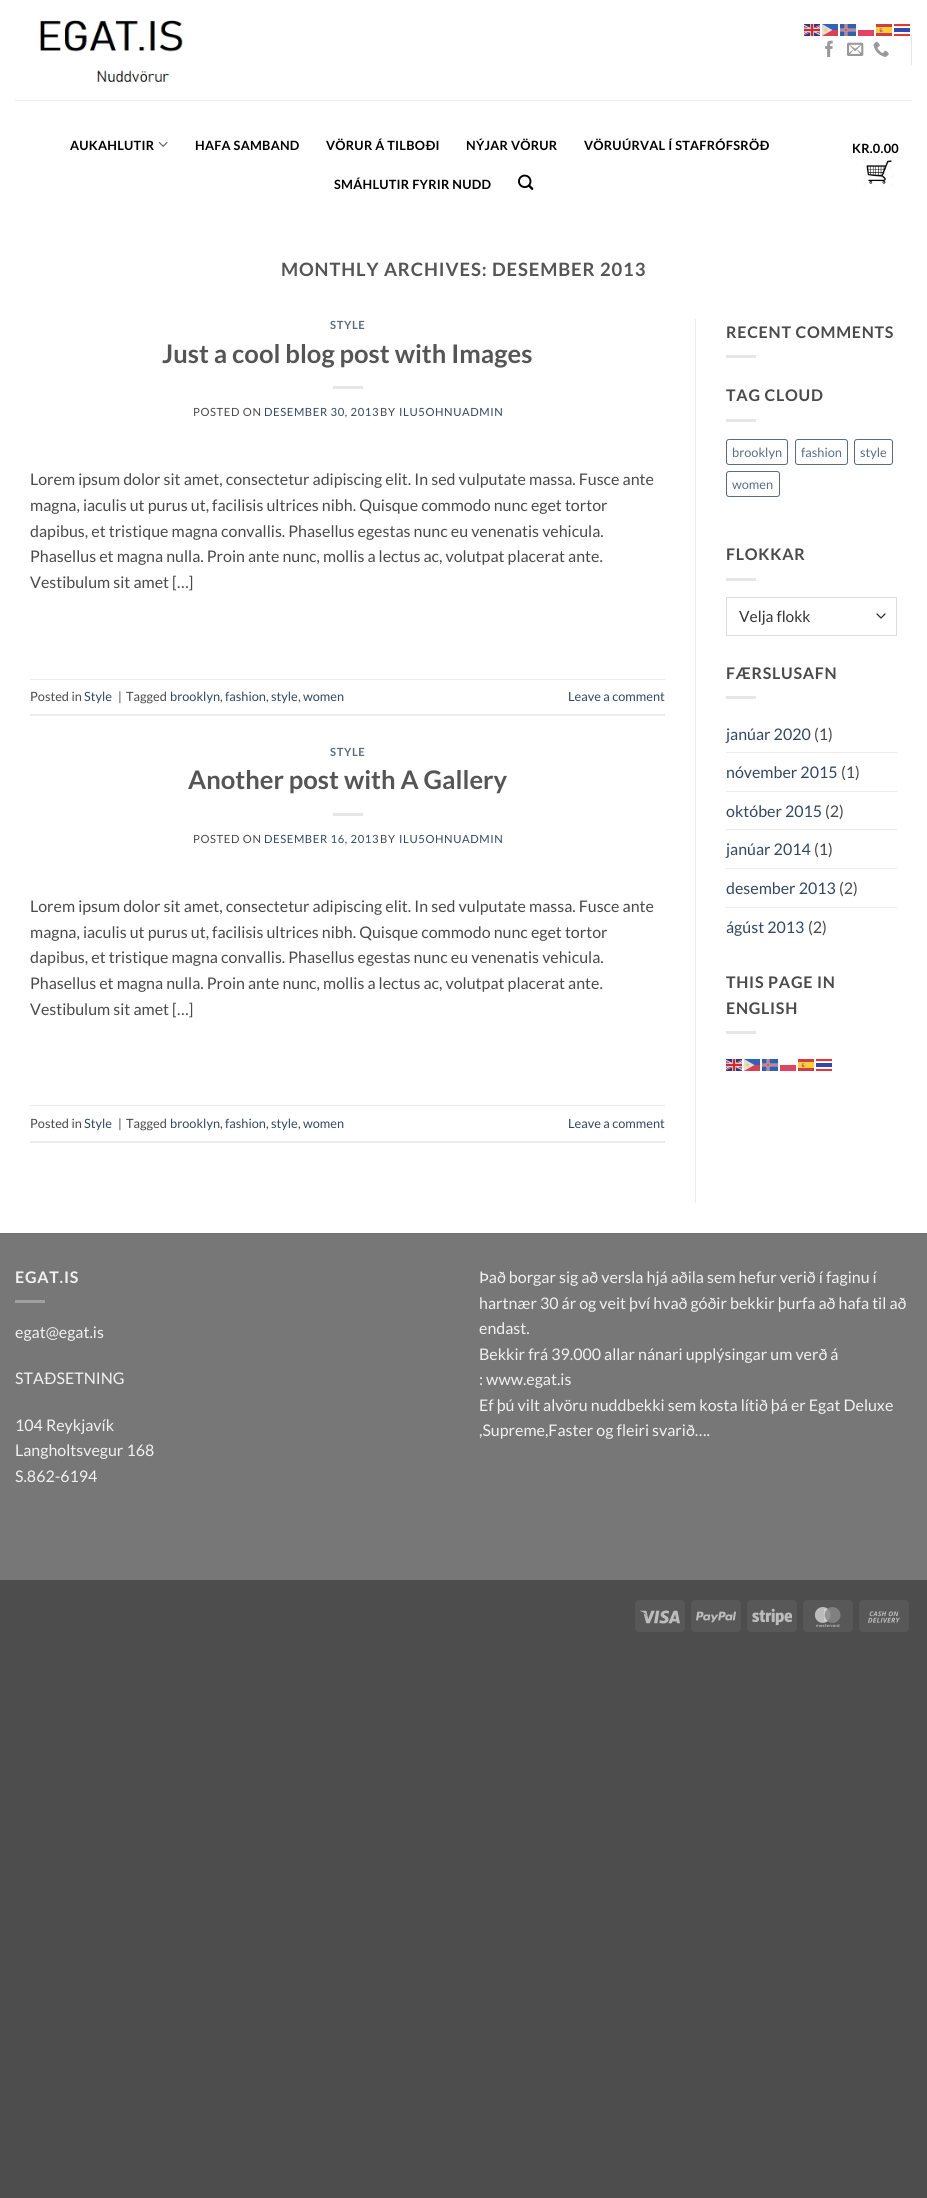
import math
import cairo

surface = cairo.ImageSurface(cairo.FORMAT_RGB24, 927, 2198)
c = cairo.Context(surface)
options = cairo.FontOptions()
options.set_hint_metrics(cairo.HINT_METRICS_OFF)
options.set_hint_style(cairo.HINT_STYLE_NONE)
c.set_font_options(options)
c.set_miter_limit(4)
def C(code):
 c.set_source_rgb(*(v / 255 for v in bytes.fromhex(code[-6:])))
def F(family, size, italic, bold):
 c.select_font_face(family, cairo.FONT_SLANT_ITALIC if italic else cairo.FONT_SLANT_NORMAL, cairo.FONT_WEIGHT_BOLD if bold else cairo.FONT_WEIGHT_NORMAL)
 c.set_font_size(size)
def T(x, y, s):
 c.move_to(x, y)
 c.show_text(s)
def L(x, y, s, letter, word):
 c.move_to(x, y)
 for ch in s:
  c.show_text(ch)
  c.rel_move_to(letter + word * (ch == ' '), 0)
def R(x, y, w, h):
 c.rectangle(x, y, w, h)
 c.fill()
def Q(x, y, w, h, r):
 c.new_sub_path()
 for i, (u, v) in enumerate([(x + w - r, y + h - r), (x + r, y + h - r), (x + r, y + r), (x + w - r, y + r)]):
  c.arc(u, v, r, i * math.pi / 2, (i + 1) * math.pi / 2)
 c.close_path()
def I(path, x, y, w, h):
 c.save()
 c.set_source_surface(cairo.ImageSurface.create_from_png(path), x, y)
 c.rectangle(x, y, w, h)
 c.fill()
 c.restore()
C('4d4d4d')
c.paint()
C('ffffff')
R(0,0,927,1233)
I('1.png',804,24,16,12)
I('2.png',822,24,16,12)
I('3.png',840,24,16,12)
C('e34363')
R(858,30,16,6)
I('4.png',876,24,16,12)
I('5.png',894,24,16,12)
I('6.png',40,20,143,62)
I('7.png',825,40,8,17)
I('8.png',847,42,17,14)
I('9.png',873,41,16,16)
C('e6e6e6')
R(911,35,1,30)
C('ededed')
R(15,100,897,1)
F('Lato',12.75,0,1)
C('000000')
L(70,150,'AUKAHLUTIR',.25,0)
I('10.png',158,141,10,6)
L(195,150,'HAFA SAMBAND',.25,0)
L(326,150,'VÖRUR Á TILBOÐI',.25,0)
L(466,150,'NÝJAR VÖRUR',.25,0)
L(584,150,'VÖRUÚRVAL Í STAFRÓFSRÖÐ',.25,0)
L(334,189,'SMÁHLUTIR FYRIR NUDD',.25,0)
I('11.png',518,174,16,16)
L(852,153,'KR.0.00',.25,0)
I('12.png',863,157,30,30)
F('Lato',18.4,0,1)
C('555555')
L(281,276,'MONTHLY ARCHIVES: DESEMBER 2013',.9,0)
F('Lato',11.25,0,1)
C('5c6d81')
L(330,329,'STYLE',.6,0)
F('Lato',25.6,0,1)
C('555555')
T(162,363,'Just a cool blog post with Images')
C('e6e6e6')
R(333,386,30,3)
F('Lato',11.25,0,0)
C('4a4a4a')
L(193,416,'POSTED ON',.6,0)
C('334862')
L(264,416,'DESEMBER 30, 2013',.6,0)
C('4a4a4a')
L(380,416,'BY',.6,0)
C('334862')
L(399,416,'ILU5OHNUADMIN',.6,0)
F('Lato',16,0,0)
C('4a4a4a')
T(30,485,'Lorem ipsum dolor sit amet, consectetur adipiscing elit. In sed vulputate massa. Fusce ante')
T(30,511,'magna, iaculis ut purus ut, facilisis ultrices nibh. Quisque commodo nunc eget tortor')
T(30,537,'dapibus, et tristique magna convallis. Phasellus egestas nunc eu venenatis vehicula.')
T(30,562,'Phasellus et magna nulla. Proin ante nunc, mollis a lectus ac, volutpat placerat ante.')
T(30,588,'Vestibulum sit amet […]')
C('ececec')
R(30,679,635,1)
R(30,714,635,2)
F('Lato',12.75,0,0)
C('4a4a4a')
T(30,701,'Posted in')
C('334862')
T(84,701,'Style')
C('4a4a4a')
T(118,701,'|')
T(126,701,'Tagged')
C('334862')
T(170,701,'brooklyn')
C('4a4a4a')
T(220,701,',')
C('334862')
T(225,701,'fashion')
C('4a4a4a')
T(266,701,',')
C('334862')
T(271,701,'style')
C('4a4a4a')
T(298,701,',')
C('334862')
T(303,701,'women')
T(568,701,'Leave a comment')
F('Lato',11.25,0,1)
C('5c6d81')
L(330,756,'STYLE',.6,0)
F('Lato',25.6,0,1)
C('555555')
T(188,789,'Another post with A Gallery')
C('e6e6e6')
R(333,813,30,3)
F('Lato',11.25,0,0)
C('4a4a4a')
L(193,843,'POSTED ON',.6,0)
C('334862')
L(264,843,'DESEMBER 16, 2013',.6,0)
C('4a4a4a')
L(380,843,'BY',.6,0)
C('334862')
L(399,843,'ILU5OHNUADMIN',.6,0)
F('Lato',16,0,0)
C('4a4a4a')
T(30,912,'Lorem ipsum dolor sit amet, consectetur adipiscing elit. In sed vulputate massa. Fusce ante')
T(30,938,'magna, iaculis ut purus ut, facilisis ultrices nibh. Quisque commodo nunc eget tortor')
T(30,963,'dapibus, et tristique magna convallis. Phasellus egestas nunc eu venenatis vehicula.')
T(30,989,'Phasellus et magna nulla. Proin ante nunc, mollis a lectus ac, volutpat placerat ante.')
T(30,1015,'Vestibulum sit amet […]')
C('ececec')
R(30,1105,635,1)
R(30,1141,635,2)
F('Lato',12.75,0,0)
C('4a4a4a')
T(30,1128,'Posted in')
C('334862')
T(84,1128,'Style')
C('4a4a4a')
T(118,1128,'|')
T(126,1128,'Tagged')
C('334862')
T(170,1128,'brooklyn')
C('4a4a4a')
T(220,1128,',')
C('334862')
T(225,1128,'fashion')
C('4a4a4a')
T(266,1128,',')
C('334862')
T(271,1128,'style')
C('4a4a4a')
T(298,1128,',')
C('334862')
T(303,1128,'women')
T(568,1128,'Leave a comment')
C('ececec')
R(695,319,1,884)
F('Lato',16,0,1)
C('4a4a4a')
L(726,338,'RECENT COMMENTS',.75,0)
C('e6e6e6')
R(726,355,30,3)
C('4a4a4a')
L(726,401,'TAG CLOUD',.75,0)
C('e6e6e6')
R(726,419,30,3)
Q(726.5,439.5,61,25,2.5)
C('5c6d81')
c.set_line_width(1)
c.stroke()
F('Lato',12.75,0,0)
T(732,457,'brooklyn')
Q(795.5,439.5,52,25,2.5)
c.stroke()
T(801,457,'fashion')
Q(854.5,439.5,38,25,2.5)
c.stroke()
T(860,457,'style')
Q(726.5,471.5,53,25,2.5)
c.stroke()
T(732,489,'women')
F('Lato',16,0,1)
C('4a4a4a')
L(726,560,'FLOKKAR',.75,0)
C('e6e6e6')
R(726,578,30,3)
c.new_path()
c.move_to(877,614)
c.line_to(881,618)
c.line_to(885,614)
C('333333')
c.set_line_width(1.3)
c.set_line_cap(cairo.LINE_CAP_ROUND)
c.set_line_join(cairo.LINE_JOIN_ROUND)
c.stroke()
c.rectangle(726.5,597.5,170,38)
C('dddddd')
c.set_line_width(1)
c.set_line_cap(cairo.LINE_CAP_BUTT)
c.set_line_join(cairo.LINE_JOIN_MITER)
c.stroke()
F('Lato',15.5,0,0)
C('333333')
T(739,622,'Velja flokk')
F('Lato',16,0,1)
C('4a4a4a')
L(726,679,'FÆRSLUSAFN',.75,0)
C('e6e6e6')
R(726,696,30,3)
F('Lato',16,0,0)
C('334862')
T(726,740,'janúar 2020')
C('4a4a4a')
T(814,740,'(1)')
C('ececec')
R(726,752,171,1)
C('334862')
T(726,778,'nóvember 2015')
C('4a4a4a')
T(841,778,'(1)')
C('ececec')
R(726,791,171,1)
C('334862')
T(726,817,'október 2015')
C('4a4a4a')
T(825,817,'(2)')
C('ececec')
R(726,829,171,1)
C('334862')
T(726,855,'janúar 2014')
C('4a4a4a')
T(814,855,'(1)')
C('ececec')
R(726,868,171,1)
C('334862')
T(726,894,'desember 2013')
C('4a4a4a')
T(839,894,'(2)')
C('ececec')
R(726,907,171,1)
C('334862')
T(726,933,'ágúst 2013')
C('4a4a4a')
T(808,933,'(2)')
F('Lato',16,0,1)
L(726,988,'THIS PAGE IN',.75,0)
L(726,1014,'ENGLISH',.75,0)
C('e6e6e6')
R(726,1031,30,3)
I('1.png',726,1059,16,12)
I('2.png',744,1059,16,12)
I('3.png',762,1059,16,12)
C('e34363')
R(780,1065,16,6)
I('4.png',798,1059,16,12)
I('5.png',816,1059,16,12)
C('777777')
R(0,1234,927,346)
C('717171')
R(0,1233,927,1)
C('f1f1f1')
L(15,1283,'EGAT.IS',.75,0)
C('a0a0a0')
R(15,1300,30,3)
F('Lato',16,0,0)
C('f1f1f1')
T(15,1338,'egat@egat.is')
T(15,1384,'STAÐSETNING')
T(15,1431,'104 Reykjavík')
T(15,1456,'Langholtsvegur 168')
T(15,1482,'S.862-6194')
T(479,1283,'Það borgar sig að versla hjá aðila sem hefur verið í faginu í')
T(479,1309,'hartnær 30 ár og veit því hvað góðir bekkir þurfa að hafa til að')
T(479,1334,'endast.')
T(479,1360,'Bekkir frá 39.000 allar nánari upplýsingar um verð á')
T(479,1385,': www.egat.is')
T(479,1411,'Ef þú vilt alvöru nuddbekki sem kosta lítið þá er Egat Deluxe')
T(479,1436,',Supreme,Faster og fleiri svarið….')
C('585858')
Q(635,1600,50,32,5)
c.fill()
I('13.png',640,1610,40,14)
Q(691,1600,50,32,5)
c.fill()
I('14.png',696,1611,40,12)
Q(747,1600,50,32,5)
c.fill()
I('15.png',752,1608,40,18)
Q(803,1600,50,32,5)
c.fill()
I('16.png',814,1607,27,20)
Q(859,1600,50,32,5)
c.fill()
I('17.png',868,1611,32,12)
surface.write_to_png('o.png')
